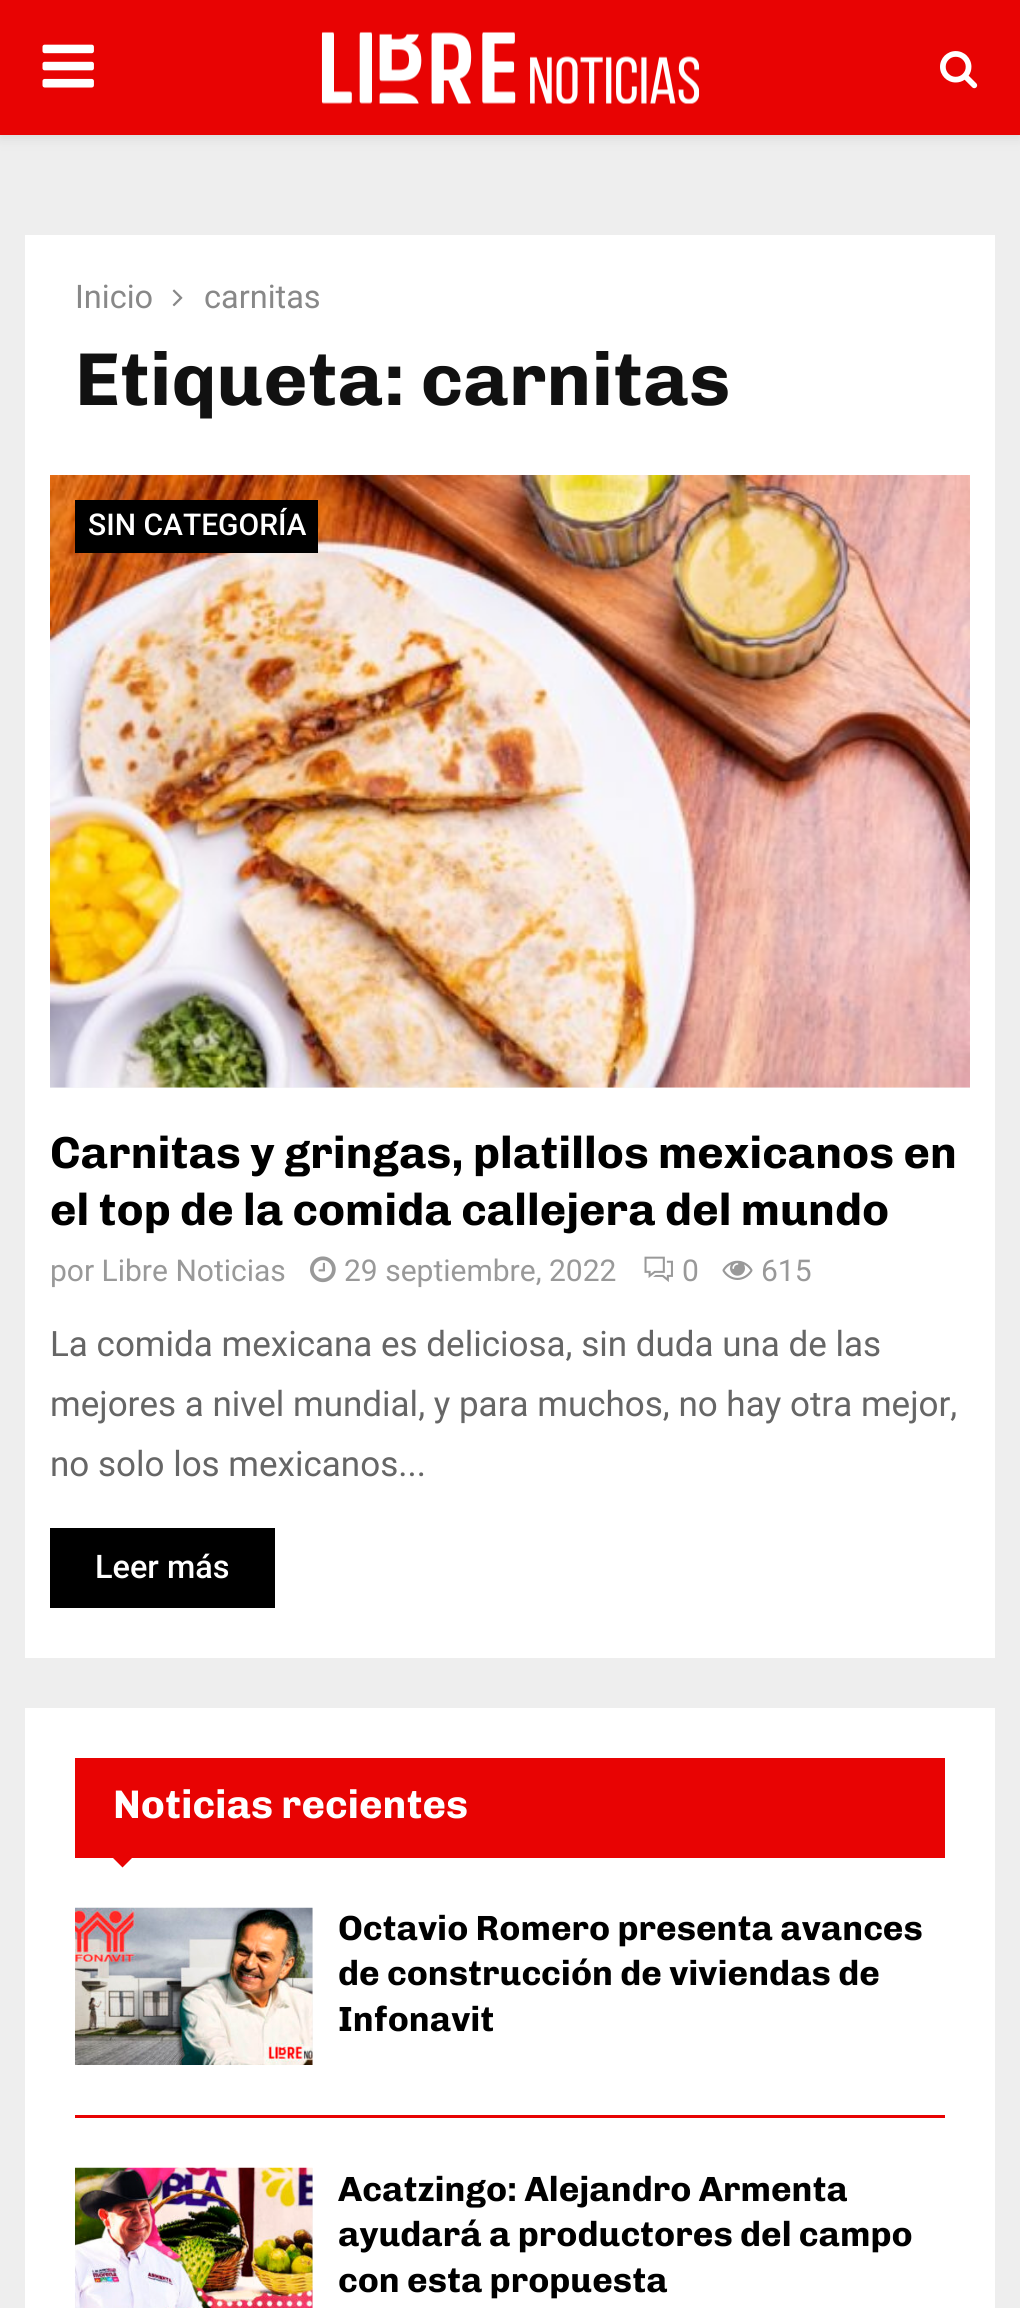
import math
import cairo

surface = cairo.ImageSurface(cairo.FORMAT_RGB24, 1020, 2308)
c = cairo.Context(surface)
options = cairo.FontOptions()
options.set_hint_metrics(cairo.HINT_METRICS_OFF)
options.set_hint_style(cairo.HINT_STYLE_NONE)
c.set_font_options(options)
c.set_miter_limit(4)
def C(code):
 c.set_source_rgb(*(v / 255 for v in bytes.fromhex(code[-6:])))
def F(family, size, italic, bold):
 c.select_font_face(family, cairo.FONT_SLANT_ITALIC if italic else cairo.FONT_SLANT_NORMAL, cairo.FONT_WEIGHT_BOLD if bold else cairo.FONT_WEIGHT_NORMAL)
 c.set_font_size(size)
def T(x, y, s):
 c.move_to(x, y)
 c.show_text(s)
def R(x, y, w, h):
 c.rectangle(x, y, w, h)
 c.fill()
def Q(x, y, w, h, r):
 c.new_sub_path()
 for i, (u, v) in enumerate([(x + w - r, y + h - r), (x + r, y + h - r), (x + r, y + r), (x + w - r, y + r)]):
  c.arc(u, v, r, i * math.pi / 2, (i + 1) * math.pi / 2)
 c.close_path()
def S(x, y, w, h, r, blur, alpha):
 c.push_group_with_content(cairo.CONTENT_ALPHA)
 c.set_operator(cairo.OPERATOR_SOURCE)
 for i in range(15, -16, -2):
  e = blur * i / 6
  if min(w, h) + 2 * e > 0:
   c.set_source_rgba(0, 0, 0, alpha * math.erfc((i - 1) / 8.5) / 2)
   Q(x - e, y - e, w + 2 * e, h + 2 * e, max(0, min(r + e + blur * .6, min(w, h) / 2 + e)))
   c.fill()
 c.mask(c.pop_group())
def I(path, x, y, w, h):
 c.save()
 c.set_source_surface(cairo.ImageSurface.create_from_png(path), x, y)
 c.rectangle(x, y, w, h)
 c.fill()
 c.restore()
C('eeeeee')
c.paint()
C('bebebe')
S(0,3,1020,135,0,6,.46)
C('e80303')
R(0,0,1020,135)
I('1.png',42,44,52,44)
I('2.png',321,31,379,74)
I('3.png',940,51,38,38)
C('ffffff')
R(25,235,970,1423)
F('Roboto',32.5,0,0)
C('888888')
T(75,308,'Inicio')
I('4.png',172,289,11,18)
T(204,308,'carnitas')
F('Chivo',75,0,1)
C('111111')
T(75,405,'Etiqueta: carnitas')
C('f5f5f5')
R(50,1087,920,1)
I('5.png',50,475,920,613)
C('000000')
R(75,500,243,53)
F('Roboto Medium',30,0,0)
C('ffffff')
T(88,535,'SIN CATEGORÍA')
F('Chivo',45,0,1)
C('000000')
T(50,1168,'Carnitas y gringas, platillos mexicanos en')
T(50,1225,'el top de la comida callejera del mundo')
F('Roboto',30,0,0)
C('999999')
T(50,1281,'por Libre Noticias')
I('6.png',310,1256,26,27)
T(344,1281,'29 septiembre, 2022')
I('7.png',644,1256,29,26)
T(682,1281,'0')
I('8.png',722,1260,31,20)
T(761,1281,'615')
F('Roboto',35,0,0)
C('666666')
T(50,1356,'La comida mexicana es deliciosa, sin duda una de las')
T(50,1416,'mejores a nivel mundial, y para muchos, no hay otra mejor,')
T(50,1476,'no solo los mexicanos...')
C('000000')
R(50,1528,225,80)
F('Roboto Medium',32.5,0,0)
C('ffffff')
T(95,1578,'Leer más')
R(25,1708,970,600)
C('e80303')
R(75,1758,870,100)
F('Chivo',40,0,1)
C('ffffff')
T(113,1818,'Noticias recientes')
C('e80303')
c.new_path()
c.move_to(112.5,1857.5)
c.line_to(132.5,1857.5)
c.line_to(122.5,1867.5)
c.close_path()
c.fill()
R(75,2115,870,3)
C('f5f5f5')
R(312,1908,1,157)
I('9.png',75,1907,238,158)
F('Chivo',35,0,1)
C('000000')
T(338,1940,'Octavio Romero presenta avances')
T(338,1985,'de construcción de viviendas de')
T(338,2031,'Infonavit')
C('f5f5f5')
R(312,2168,1,140)
I('10.png',75,2167,238,141)
C('000000')
T(338,2201,'Acatzingo: Alejandro Armenta')
T(338,2246,'ayudará a productores del campo')
T(338,2292,'con esta propuesta')
surface.write_to_png('o.png')
